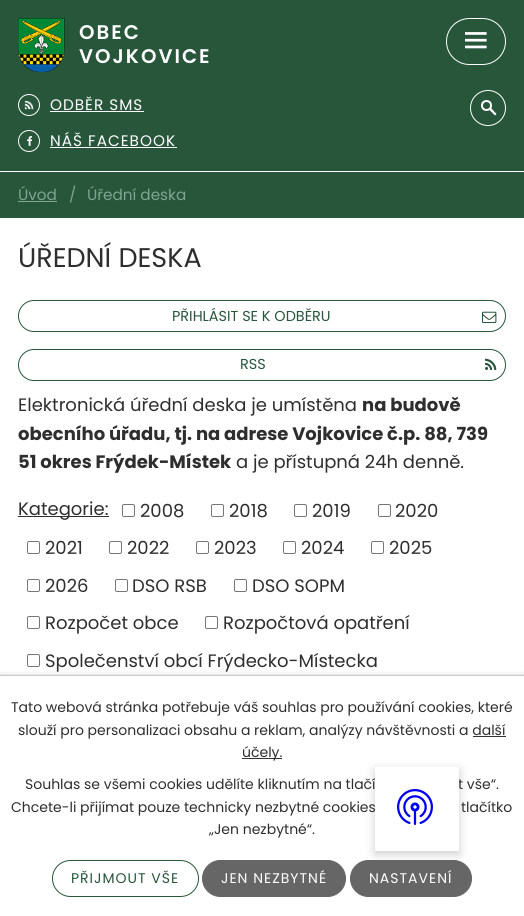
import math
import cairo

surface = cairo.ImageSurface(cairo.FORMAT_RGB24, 524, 916)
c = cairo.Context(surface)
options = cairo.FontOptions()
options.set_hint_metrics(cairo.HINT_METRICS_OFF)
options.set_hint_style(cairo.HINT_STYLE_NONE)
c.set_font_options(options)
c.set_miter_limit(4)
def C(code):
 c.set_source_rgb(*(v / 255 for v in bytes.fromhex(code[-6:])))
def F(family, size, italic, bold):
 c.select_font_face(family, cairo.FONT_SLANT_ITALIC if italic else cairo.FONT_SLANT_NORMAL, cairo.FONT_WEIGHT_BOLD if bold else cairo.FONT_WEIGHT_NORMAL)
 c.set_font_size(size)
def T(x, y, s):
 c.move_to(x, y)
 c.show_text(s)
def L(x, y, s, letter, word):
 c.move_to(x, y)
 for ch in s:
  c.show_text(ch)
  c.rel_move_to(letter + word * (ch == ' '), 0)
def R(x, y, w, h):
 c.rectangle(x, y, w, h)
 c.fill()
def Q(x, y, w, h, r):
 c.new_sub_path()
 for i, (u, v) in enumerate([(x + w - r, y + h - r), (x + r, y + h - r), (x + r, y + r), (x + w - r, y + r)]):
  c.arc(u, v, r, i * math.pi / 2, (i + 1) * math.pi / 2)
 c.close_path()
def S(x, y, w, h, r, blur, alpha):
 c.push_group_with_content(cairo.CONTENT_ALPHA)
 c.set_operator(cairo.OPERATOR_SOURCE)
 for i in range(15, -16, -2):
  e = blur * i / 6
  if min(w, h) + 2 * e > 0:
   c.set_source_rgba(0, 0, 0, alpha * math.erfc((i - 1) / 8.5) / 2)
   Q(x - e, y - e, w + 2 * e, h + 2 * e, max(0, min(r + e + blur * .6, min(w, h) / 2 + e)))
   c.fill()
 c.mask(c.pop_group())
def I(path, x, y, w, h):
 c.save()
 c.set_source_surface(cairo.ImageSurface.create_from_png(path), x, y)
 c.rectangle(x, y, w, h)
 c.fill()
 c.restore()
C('ffffff')
c.paint()
C('27563a')
R(0,0,524,171)
I('1.png',18,18,47,54)
F('Poppins SemiBold',19.75,0,0)
C('ffffff')
L(79,39,'OBEC',2,0)
L(79,63,'VOJKOVICE',2,0)
I('2.png',24,100,10,10)
c.arc(29,105,10.5,0,2 * math.pi)
c.set_line_width(1)
c.stroke()
F('Poppins',15.25,0,0)
L(50,110,'ODBĚR SMS',1,0)
R(50,111,94,1)
c.new_path()
c.arc(488,108,17.5,0,2 * math.pi)
c.stroke()
c.arc(486.5,105.5,4.5,0,2 * math.pi)
c.set_line_width(2)
c.stroke()
c.new_path()
c.move_to(491,108)
c.line_to(496.5,114)
c.line_to(495,115.5)
c.line_to(489,109.5)
c.close_path()
c.fill()
I('3.png',27,136,5,10)
c.arc(29,141,10.5,0,2 * math.pi)
c.set_line_width(1)
c.stroke()
L(50,146,'NÁŠ FACEBOOK',1,0)
R(50,147,127,1)
Q(446.5,18.5,59,46,23)
c.stroke()
I('4.png',465,32,22,17)
C('27563a')
R(0,172,524,46)
C('7da68e')
T(18,200,'Úvod')
R(18,201,39,1)
T(69,200,'/')
T(87,200,'Úřední deska')
F('Poppins',27,0,0)
C('2e2e2e')
T(18,267,'ÚŘEDNÍ DESKA')
Q(18.5,300.5,487,31,15.5)
C('27563a')
c.stroke()
F('Poppins',14.4,0,0)
T(172,321,'PŘIHLÁSIT SE K ODBĚRU')
I('5.png',482,311,15,12)
Q(18.5,349.5,487,31,15.5)
c.stroke()
T(240,369,'RSS')
I('6.png',485,358,12,12)
F('Poppins',18,0,0)
C('2e2e2e')
T(18,411,'Elektronická úřední deska je umístěna')
F('Poppins',18,0,1)
T(362,411,'na budově')
T(18,440,'obecního úřadu, tj. na adrese Vojkovice č.p. 88, 739')
T(18,468,'51 okres Frýdek-Místek')
F('Poppins',18,0,0)
T(236,468,'a je přístupná 24h denně.')
R(18,516,91,1)
T(18,515,'Kategorie:')
Q(122.5,504.5,12,12,1.5)
C('767676')
c.stroke()
C('2e2e2e')
T(140,517,'2008')
Q(211.5,504.5,12,12,1.5)
C('767676')
c.stroke()
C('2e2e2e')
T(229,517,'2018')
Q(294.5,504.5,12,12,1.5)
C('767676')
c.stroke()
C('2e2e2e')
T(312,517,'2019')
Q(378.5,504.5,12,12,1.5)
C('767676')
c.stroke()
C('2e2e2e')
T(395,517,'2020')
Q(27.5,541.5,12,12,1.5)
C('767676')
c.stroke()
C('2e2e2e')
T(45,554,'2021')
Q(109.5,541.5,12,12,1.5)
C('767676')
c.stroke()
C('2e2e2e')
T(127,554,'2022')
Q(196.5,541.5,12,12,1.5)
C('767676')
c.stroke()
C('2e2e2e')
T(214,554,'2023')
Q(283.5,541.5,12,12,1.5)
C('767676')
c.stroke()
C('2e2e2e')
T(301,554,'2024')
Q(371.5,541.5,12,12,1.5)
C('767676')
c.stroke()
C('2e2e2e')
T(389,554,'2025')
Q(27.5,579.5,12,12,1.5)
C('767676')
c.stroke()
C('2e2e2e')
T(45,592,'2026')
Q(115.5,579.5,12,12,1.5)
C('767676')
c.stroke()
C('2e2e2e')
T(132,592,'DSO RSB')
Q(234.5,579.5,12,12,1.5)
C('767676')
c.stroke()
C('2e2e2e')
T(252,592,'DSO SOPM')
Q(27.5,616.5,12,12,1.5)
C('767676')
c.stroke()
C('2e2e2e')
T(45,629,'Rozpočet obce')
Q(205.5,616.5,12,12,1.5)
C('767676')
c.stroke()
C('2e2e2e')
T(223,629,'Rozpočtová opatření')
Q(27.5,654.5,12,12,1.5)
C('767676')
c.stroke()
C('2e2e2e')
T(45,667,'Společenství obcí Frýdecko-Místecka')
C('000000')
S(0,675,524,241,0,2.5,.2)
C('ffffff')
R(0,676,524,240)
C('666666')
Q(350.5,860.5,121,36,18)
c.fill_preserve()
c.stroke()
C('000000')
S(375,770,84,84,0,5,.2)
F('Poppins',14,0,0)
C('2e2e2e')
T(25,789,'Souhlas se všemi cookies udělíte kliknutím na tlačí')
T(458,789,'t vše“.')
T(11,812,'Chcete-li přijímat pouze technicky nezbytné cookies')
C('ffffff')
R(375,767,84,84)
I('7.png',397,789,36,36)
C('cccccc')
R(0,675,524,1)
C('2e2e2e')
T(11,712,'Tato webová stránka potřebuje váš souhlas pro používání cookies, které')
T(18,735,'slouží pro personalizaci obsahu a reklam, analýzy návštěvnosti a další')
C('333333')
R(242,758,40,1)
C('2e2e2e')
T(242,757,'účely.')
C('333333')
R(473,736,33,1)
C('2e2e2e')
T(461,812,'tlačítko')
T(209,834,'„Jen nezbytné“.')
Q(52.5,860.5,146,36,18)
C('27563a')
c.stroke()
L(71,883,'PŘIJMOUT VŠE',1,0)
C('666666')
Q(202.5,860.5,143,36,18)
c.fill_preserve()
c.stroke()
C('ffffff')
L(221,883,'JEN NEZBYTNÉ',1,0)
L(369,883,'NASTAVENÍ',1,0)
surface.write_to_png('o.png')
